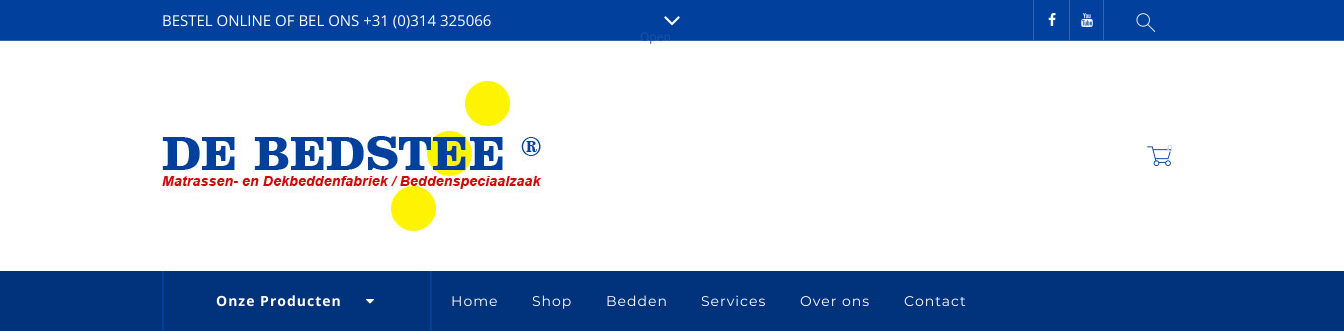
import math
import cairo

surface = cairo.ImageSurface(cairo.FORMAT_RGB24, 1344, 331)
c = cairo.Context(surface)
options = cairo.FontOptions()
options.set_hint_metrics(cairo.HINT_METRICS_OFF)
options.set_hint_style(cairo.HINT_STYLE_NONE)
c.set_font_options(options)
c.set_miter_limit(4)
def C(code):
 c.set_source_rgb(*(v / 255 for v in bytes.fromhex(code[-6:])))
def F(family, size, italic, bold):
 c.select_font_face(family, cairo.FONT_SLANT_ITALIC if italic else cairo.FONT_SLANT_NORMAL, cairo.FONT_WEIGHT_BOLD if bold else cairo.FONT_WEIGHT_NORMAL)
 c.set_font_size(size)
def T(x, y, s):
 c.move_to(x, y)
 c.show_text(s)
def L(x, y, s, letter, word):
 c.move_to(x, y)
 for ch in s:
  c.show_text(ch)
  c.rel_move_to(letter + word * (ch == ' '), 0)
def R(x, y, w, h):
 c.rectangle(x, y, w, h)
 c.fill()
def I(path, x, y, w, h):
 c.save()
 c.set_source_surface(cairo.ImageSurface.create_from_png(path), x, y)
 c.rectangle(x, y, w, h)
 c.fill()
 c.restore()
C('01409c')
c.paint()
C('3466b0')
R(0,40,1344,1)
F('Open Sans',15,0,0)
C('ffffff')
T(162,26,'BESTEL ONLINE OF BEL ONS +31 (0)314 325066')
C('3466b0')
R(1033,0,1,40)
I('1.png',1048,13,8,13)
R(1103,0,1,40)
R(1069,0,1,40)
I('2.png',1081,13,12,14)
I('3.png',1136,13,20,19)
I('4.png',664,16,16,10)
C('ffffff')
R(0,41,1344,230)
F('Open Sans',12,0,0)
C('1a53a6')
T(640,41,'Open')
I('5.png',162,81,379,150)
I('6.png',1147,146,25,20)
F('Open Sans',10,0,1)
C('d6e0ef')
T(1167,152,'0')
C('01337d')
R(0,271,1344,60)
C('01409c')
R(430,271,2,60)
R(162,271,2,60)
F('Open Sans',14,0,1)
C('ffffff')
L(216,306,'Onze Producten',1,0)
I('7.png',366,299,8,5)
F('Montserrat Thin',14,0,0)
L(451,306,'Home',1,0)
L(532,306,'Shop',1,0)
L(606,306,'Bedden',1,0)
L(701,306,'Services',1,0)
L(800,306,'Over ons',1,0)
L(904,306,'Contact',1,0)
surface.write_to_png('o.png')
